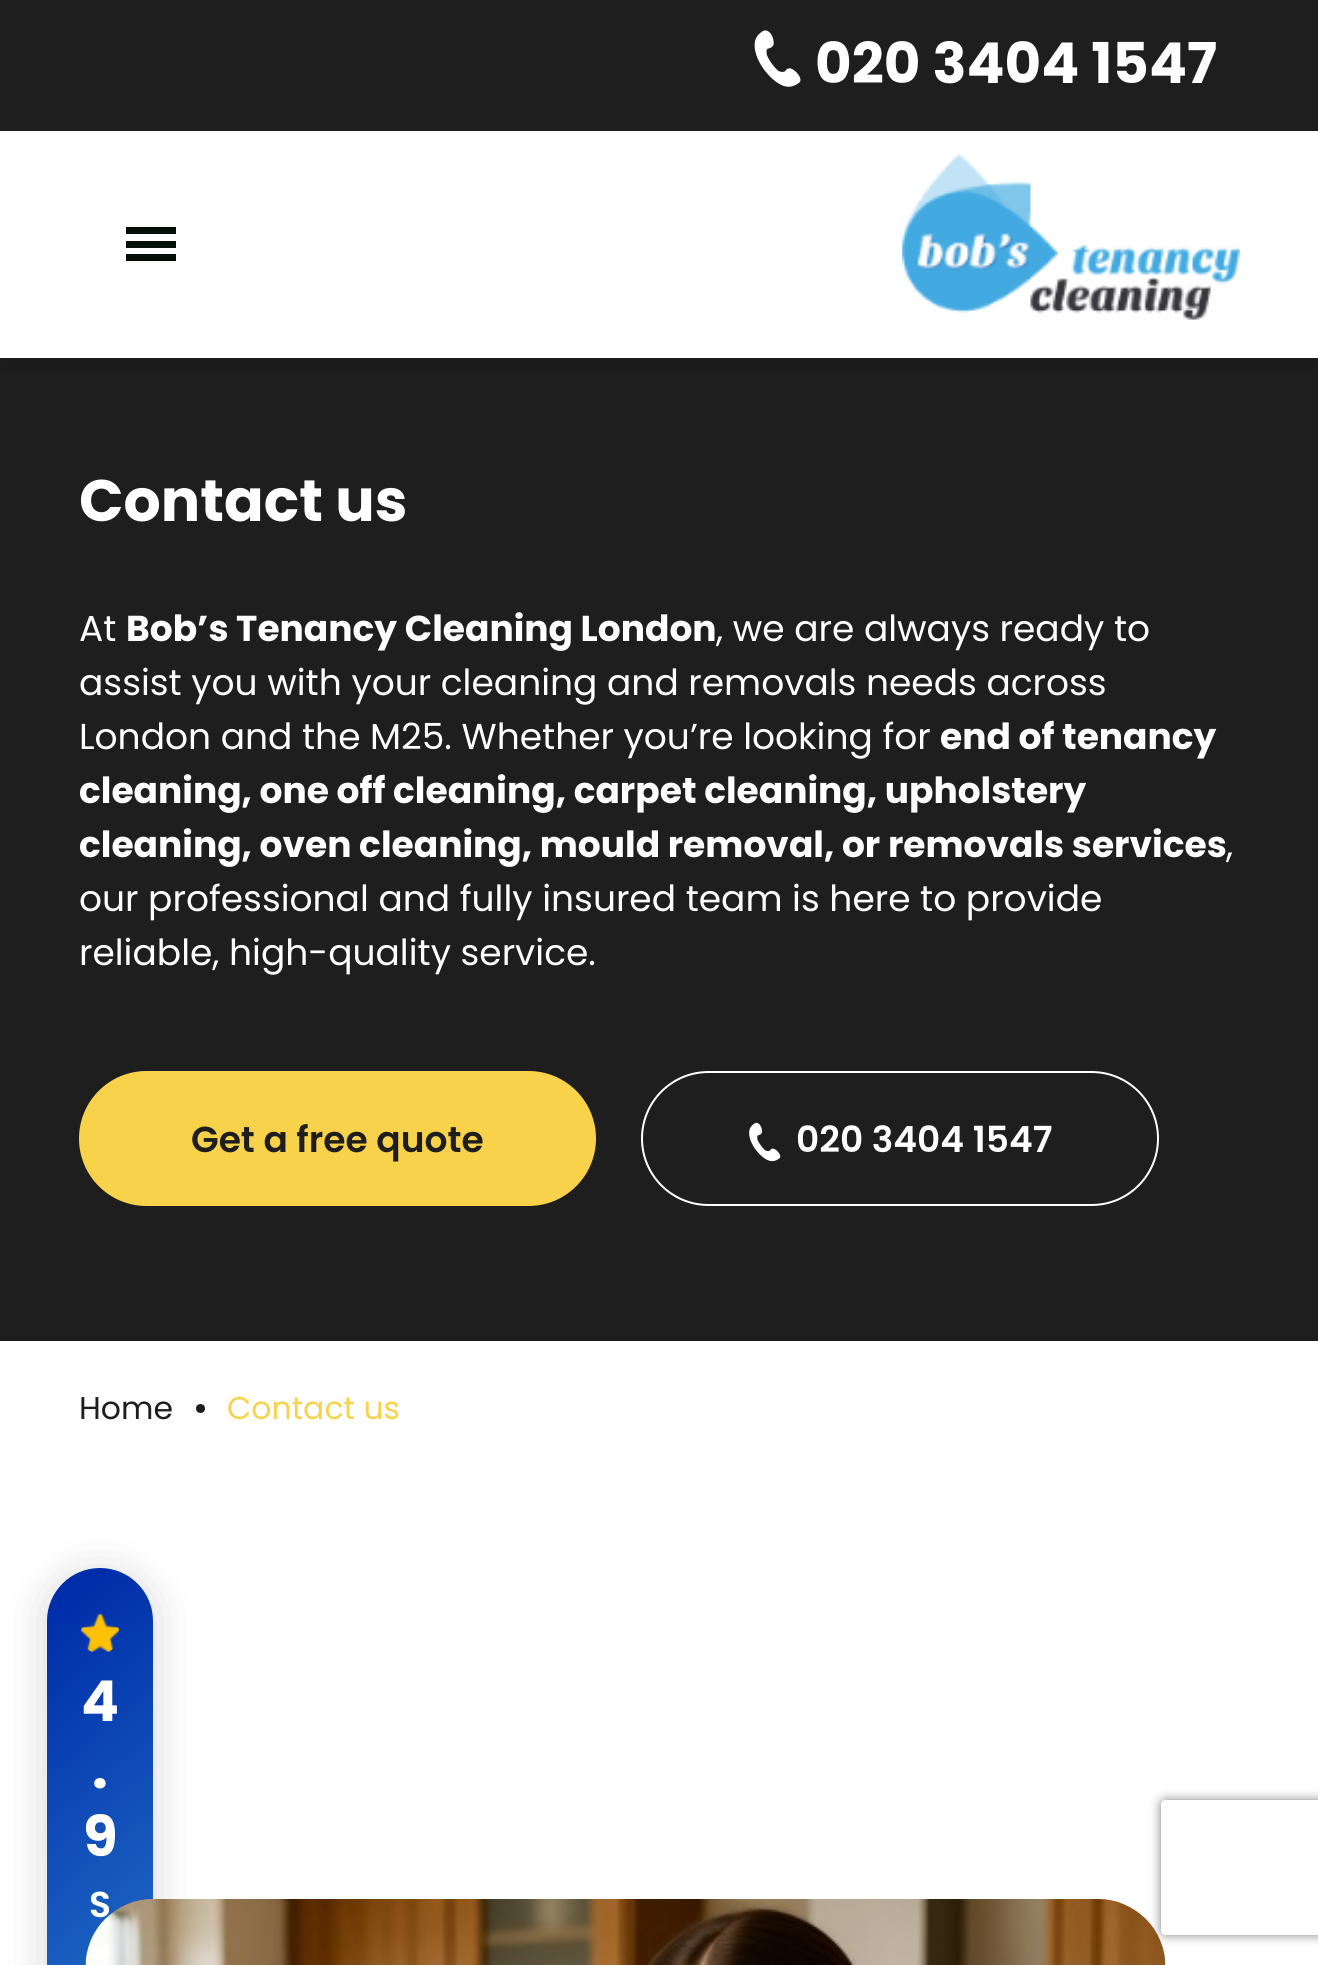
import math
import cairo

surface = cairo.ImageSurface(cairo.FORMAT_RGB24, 1318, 1965)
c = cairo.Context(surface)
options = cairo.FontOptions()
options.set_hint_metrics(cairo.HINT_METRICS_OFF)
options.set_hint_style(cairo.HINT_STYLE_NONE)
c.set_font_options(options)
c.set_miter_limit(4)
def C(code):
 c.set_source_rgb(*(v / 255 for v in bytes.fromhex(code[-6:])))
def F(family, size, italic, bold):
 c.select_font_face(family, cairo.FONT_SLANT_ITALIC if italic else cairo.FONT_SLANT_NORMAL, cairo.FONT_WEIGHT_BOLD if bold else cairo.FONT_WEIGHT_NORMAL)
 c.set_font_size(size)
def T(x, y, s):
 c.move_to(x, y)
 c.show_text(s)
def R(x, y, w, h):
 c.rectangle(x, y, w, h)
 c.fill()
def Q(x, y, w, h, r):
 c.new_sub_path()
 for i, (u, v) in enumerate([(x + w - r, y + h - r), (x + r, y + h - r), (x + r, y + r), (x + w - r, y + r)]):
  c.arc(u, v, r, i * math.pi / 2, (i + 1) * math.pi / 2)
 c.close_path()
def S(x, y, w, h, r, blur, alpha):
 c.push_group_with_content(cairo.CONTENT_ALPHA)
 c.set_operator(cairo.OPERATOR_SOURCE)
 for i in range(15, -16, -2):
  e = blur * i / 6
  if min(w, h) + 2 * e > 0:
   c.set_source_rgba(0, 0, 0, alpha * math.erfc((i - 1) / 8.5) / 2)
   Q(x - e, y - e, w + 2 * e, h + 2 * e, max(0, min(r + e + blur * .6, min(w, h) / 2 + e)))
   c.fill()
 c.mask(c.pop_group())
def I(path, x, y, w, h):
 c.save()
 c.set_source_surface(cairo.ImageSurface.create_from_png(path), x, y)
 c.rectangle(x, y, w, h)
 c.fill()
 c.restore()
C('ffffff')
c.paint()
C('1e1e1e')
R(0,358,1318,983)
C('000000')
S(0,7,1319,358,0,7,.16)
C('ffffff')
R(0,131,1318,227)
C('1e1e1e')
R(0,0,1318,131)
I('1.png',754,30,47,57)
F('Poppins',56.25,0,1)
C('ffffff')
T(815,83,'020 3404 1547')
C('040f09')
R(126,227,50,7)
R(126,241,50,7)
R(126,254,50,7)
I('2.png',902,153,338,167)
F('Poppins',58.5,0,1)
C('ffffff')
T(79,521,'Contact us')
F('Poppins',36,0,0)
T(79,641,'At')
F('Poppins',36,0,1)
T(126,641,'Bob’s Tenancy Cleaning London')
F('Poppins',36,0,0)
T(716,641,', we are always ready to')
T(79,695,'assist you with your cleaning and removals needs across')
T(79,749,'London and the M25. Whether you’re looking for')
F('Poppins',36,0,1)
T(940,749,'end of tenancy')
T(79,803,'cleaning, one off cleaning, carpet cleaning, upholstery')
T(79,857,'cleaning, oven cleaning, mould removal, or removals services')
F('Poppins',36,0,0)
T(1226,857,',')
T(79,911,'our professional and fully insured team is here to provide')
T(79,965,'reliable, high-quality service.')
C('f8d24a')
Q(80,1072,515,133,66.5)
c.fill_preserve()
c.stroke()
F('Poppins SemiBold',36,0,0)
C('1e1e1e')
T(191,1152,'Get a free quote')
Q(642,1072,516,133,66.5)
C('ffffff')
c.stroke()
I('3.png',749,1122,32,40)
T(796,1152,'020 3404 1547')
F('Poppins',31.5,0,0)
C('1e1e1e')
T(79,1419,'Home')
c.new_path()
c.arc(200.5,1408.5,4.5,0,2 * math.pi)
c.fill()
C('f8d24a')
T(227,1419,'Contact us')
C('000000')
S(47,1575,106,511,53,22.5,.16)
gradient = cairo.LinearGradient(-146,1730,346,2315)
gradient.add_color_stop_rgba(.05,0,0.18,0.667,1)
gradient.add_color_stop_rgba(1,0.259,0.667,0.882,1)
c.set_source(gradient)
Q(47,1568,106,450,53)
c.fill()
I('4.png',81,1613,38,40)
F('Poppins',56.25,0,1)
C('ffffff')
T(81,1721,'4')
T(92,1788,'.')
T(83,1856,'9')
F('Poppins SemiBold',36,0,0)
T(89,1917,'S')
c.save()
c.set_fill_rule(cairo.FILL_RULE_EVEN_ODD)
c.new_path()
c.move_to(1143,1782)
c.line_to(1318,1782)
c.line_to(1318,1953)
c.line_to(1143,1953)
c.close_path()
c.move_to(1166,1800)
c.line_to(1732,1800)
c.curve_to(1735,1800,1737,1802,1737,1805)
c.line_to(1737,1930)
c.curve_to(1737,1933,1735,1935,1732,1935)
c.line_to(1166,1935)
c.curve_to(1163,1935,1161,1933,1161,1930)
c.line_to(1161,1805)
c.curve_to(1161,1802,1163,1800,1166,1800)
c.close_path()
c.clip()
C('808080')
S(1161,1800,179,135,5,5.5,1)
c.restore()
I('5.png',85,1899,1081,66)
surface.write_to_png('o.png')
